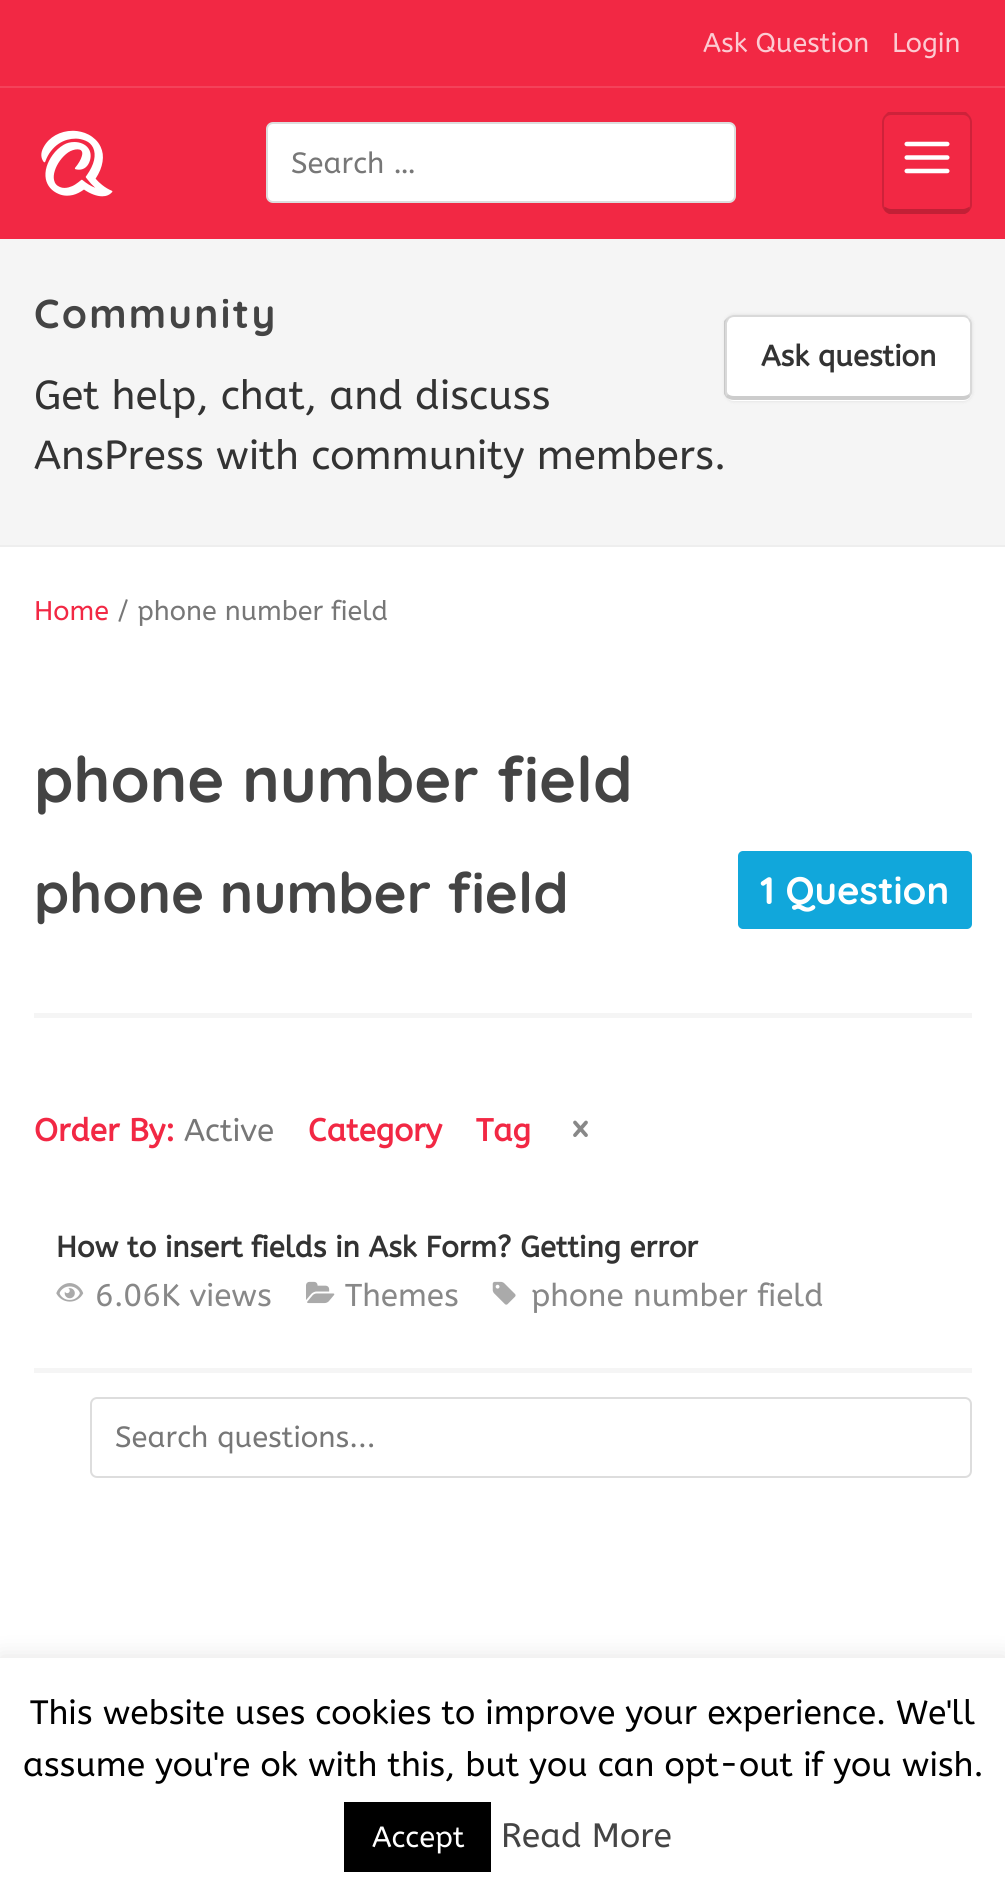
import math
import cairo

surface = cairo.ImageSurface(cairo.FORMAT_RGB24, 1005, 1897)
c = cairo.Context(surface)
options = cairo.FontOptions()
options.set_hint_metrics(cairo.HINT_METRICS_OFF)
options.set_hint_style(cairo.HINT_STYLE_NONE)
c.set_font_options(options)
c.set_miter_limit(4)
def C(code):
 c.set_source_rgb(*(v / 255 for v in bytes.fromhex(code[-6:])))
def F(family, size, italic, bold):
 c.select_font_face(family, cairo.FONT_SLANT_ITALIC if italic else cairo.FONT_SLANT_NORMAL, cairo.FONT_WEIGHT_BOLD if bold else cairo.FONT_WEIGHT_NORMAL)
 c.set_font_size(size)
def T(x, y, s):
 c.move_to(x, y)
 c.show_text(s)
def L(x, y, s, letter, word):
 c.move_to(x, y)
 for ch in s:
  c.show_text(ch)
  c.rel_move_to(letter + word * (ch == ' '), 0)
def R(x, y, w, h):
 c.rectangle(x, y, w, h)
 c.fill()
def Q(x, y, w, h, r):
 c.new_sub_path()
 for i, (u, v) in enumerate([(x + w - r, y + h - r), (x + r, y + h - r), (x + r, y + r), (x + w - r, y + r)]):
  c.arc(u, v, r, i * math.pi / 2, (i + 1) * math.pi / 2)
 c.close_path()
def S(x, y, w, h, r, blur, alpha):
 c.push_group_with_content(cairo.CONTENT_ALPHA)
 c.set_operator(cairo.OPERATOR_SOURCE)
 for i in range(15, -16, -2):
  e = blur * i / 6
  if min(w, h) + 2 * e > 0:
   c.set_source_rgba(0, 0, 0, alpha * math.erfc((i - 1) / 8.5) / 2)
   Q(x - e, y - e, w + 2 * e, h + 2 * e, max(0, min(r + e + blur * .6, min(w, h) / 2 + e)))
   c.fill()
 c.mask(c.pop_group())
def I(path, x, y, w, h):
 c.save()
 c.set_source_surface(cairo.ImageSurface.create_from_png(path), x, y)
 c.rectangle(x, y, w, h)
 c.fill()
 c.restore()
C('ffffff')
c.paint()
C('f22844')
R(0,0,1005,239)
C('f4425a')
R(0,86,1005,2)
F('ABeeZee',27,0,0)
C('fccbd2')
T(703,52,'Ask Question')
T(892,52,'Login')
I('1.png',41,130,72,67)
C('ffffff')
Q(267,123,468,79,6)
c.fill_preserve()
C('dddddd')
c.stroke()
F('ABeeZee',29.25,0,0)
C('777777')
T(291,173,'Search …')
c.set_source_rgba(0,0,0,0.15)
c.new_path()
c.move_to(891,115)
c.curve_to(889,115,887,116,886,117)
c.line_to(885,115)
c.line_to(888,112)
c.line_to(966,112)
c.line_to(969,115)
c.line_to(968,117)
c.curve_to(967,116,965,115,963,115)
c.close_path()
c.fill()
c.new_path()
c.move_to(972,205)
c.line_to(972,122)
c.curve_to(972,120,971,117,969,115)
c.line_to(968,117)
c.curve_to(969,118,970,120,970,122)
c.line_to(970,205)
c.curve_to(970,206,970,207,969,207)
c.line_to(970,210)
c.curve_to(971,209,972,207,972,205)
c.close_path()
c.fill()
c.set_source_rgba(0,0,0,0.2)
c.new_path()
c.move_to(889,214)
c.curve_to(887,213,885,212,884,210)
c.line_to(885,207)
c.curve_to(887,208,889,209,891,209)
c.line_to(963,209)
c.curve_to(965,209,967,208,969,207)
c.line_to(970,210)
c.curve_to(969,212,967,213,965,214)
c.close_path()
c.fill()
c.set_source_rgba(0,0,0,0.15)
c.new_path()
c.move_to(882,122)
c.line_to(882,205)
c.curve_to(882,207,883,209,884,210)
c.line_to(885,207)
c.curve_to(884,207,884,206,884,205)
c.line_to(884,122)
c.curve_to(884,120,885,118,886,117)
c.line_to(885,115)
c.curve_to(883,117,882,120,882,122)
c.close_path()
c.fill()
I('2.png',904,141,46,33)
C('f5f5f5')
R(0,239,1005,306)
C('eeeeee')
R(0,545,1005,2)
F('Quicksand',40.5,0,1)
C('444444')
L(34,328,'Community',2.25,0)
C('000000')
S(725,315,247,86,9,2,.1)
C('ffffff')
Q(725,315,247,86,9)
c.fill()
c.set_source_rgba(0,0,0,0.15)
c.new_path()
c.move_to(734,315)
c.curve_to(732,315,729,316,727,318)
c.line_to(729,319)
c.curve_to(730,318,732,317,734,317)
c.line_to(963,317)
c.curve_to(965,317,967,318,968,319)
c.line_to(969,318)
c.curve_to(968,316,966,315,963,315)
c.close_path()
c.fill()
c.new_path()
c.move_to(972,392)
c.line_to(972,324)
c.curve_to(972,322,971,319,969,318)
c.line_to(968,319)
c.line_to(970,323)
c.line_to(970,392)
c.line_to(969,394)
c.line_to(970,397)
c.curve_to(971,395,972,394,972,392)
c.close_path()
c.fill()
c.set_source_rgba(0,0,0,0.2)
c.new_path()
c.move_to(970,397)
c.curve_to(968,399,966,400,963,400)
c.line_to(734,400)
c.curve_to(731,400,728,399,726,397)
c.line_to(728,394)
c.curve_to(729,395,731,396,734,396)
c.line_to(963,396)
c.curve_to(965,396,968,395,969,394)
c.close_path()
c.fill()
c.set_source_rgba(0,0,0,0.15)
c.new_path()
c.move_to(724,321)
c.line_to(727,318)
c.line_to(729,319)
c.line_to(727,323)
c.line_to(727,392)
c.line_to(728,394)
c.line_to(726,397)
c.line_to(724,394)
c.close_path()
c.fill()
F('ABeeZee',29.25,0,1)
C('333333')
T(761,366,'Ask question')
F('ABeeZee',40.5,0,0)
T(34,409,'Get help, chat, and discuss')
T(34,469,'AnsPress with community members.')
F('ABeeZee',27,0,0)
C('f22844')
T(34,620,'Home')
C('777777')
T(117,620,'/ phone number field')
F('Quicksand',63,0,1)
C('444444')
T(34,802,'phone number field')
C('f5f5f5')
R(34,1013,938,5)
F('Quicksand',56.25,0,1)
C('444444')
T(34,913,'phone number field')
C('11a7db')
Q(738,851,234,78,5)
c.fill()
F('Quicksand',38.25,0,1)
C('ffffff')
T(760,904,'1 Question')
F('ABeeZee',31.5,0,1)
C('f22844')
T(34,1141,'Order By:')
F('ABeeZee',31.5,0,0)
C('777777')
T(184,1141,'Active')
F('ABeeZee',31.5,0,1)
C('f22844')
T(308,1141,'Category')
T(476,1141,'Tag')
I('3.png',573,1120,15,17)
C('f5f5f5')
R(34,1368,938,5)
F('ABeeZee',29.25,0,1)
C('333333')
T(56,1257,'How to insert fields in Ask Form? Getting error')
I('4.png',56,1283,28,19)
F('ABeeZee',31.5,0,0)
C('888888')
T(95,1306,'6.06K views')
I('5.png',306,1281,29,23)
T(345,1306,'Themes')
I('6.png',492,1281,24,24)
T(531,1306,'phone number field')
Q(91,1398,880,79,6)
C('dddddd')
c.stroke()
F('ABeeZee',29.25,0,0)
C('777777')
T(115,1447,'Search questions...')
C('acabab')
S(0,1656,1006,241,0,11,.3)
C('ffffff')
R(0,1658,1005,239)
F('ABeeZee',33.75,0,0)
C('000000')
T(30,1724,'This website uses cookies to improve your experience. We\'ll')
T(23,1776,'assume you\'re ok with this, but you can opt-out if you wish.')
R(344,1802,147,70)
F('ABeeZee',29.25,0,0)
C('ffffff')
T(372,1847,'Accept')
F('ABeeZee',33.75,0,0)
C('444444')
T(501,1847,'Read More')
surface.write_to_png('o.png')
